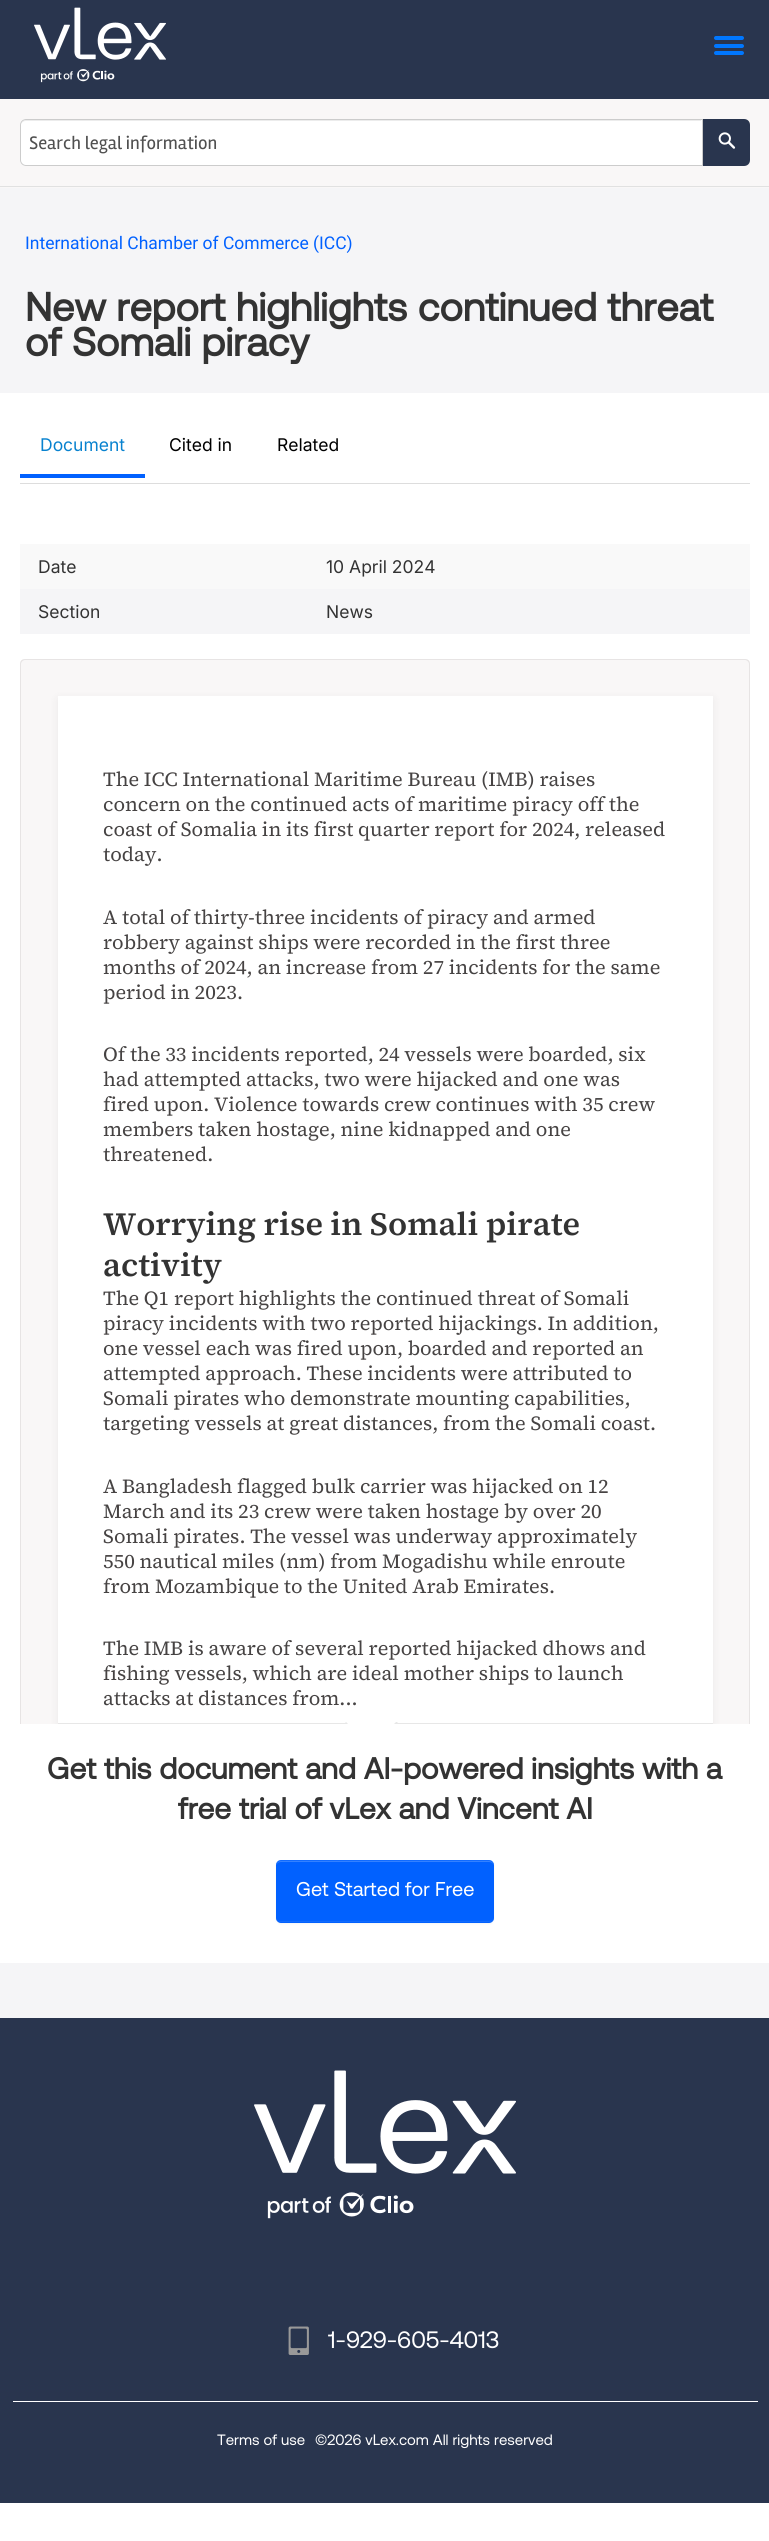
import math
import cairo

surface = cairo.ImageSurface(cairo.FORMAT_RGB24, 769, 2541)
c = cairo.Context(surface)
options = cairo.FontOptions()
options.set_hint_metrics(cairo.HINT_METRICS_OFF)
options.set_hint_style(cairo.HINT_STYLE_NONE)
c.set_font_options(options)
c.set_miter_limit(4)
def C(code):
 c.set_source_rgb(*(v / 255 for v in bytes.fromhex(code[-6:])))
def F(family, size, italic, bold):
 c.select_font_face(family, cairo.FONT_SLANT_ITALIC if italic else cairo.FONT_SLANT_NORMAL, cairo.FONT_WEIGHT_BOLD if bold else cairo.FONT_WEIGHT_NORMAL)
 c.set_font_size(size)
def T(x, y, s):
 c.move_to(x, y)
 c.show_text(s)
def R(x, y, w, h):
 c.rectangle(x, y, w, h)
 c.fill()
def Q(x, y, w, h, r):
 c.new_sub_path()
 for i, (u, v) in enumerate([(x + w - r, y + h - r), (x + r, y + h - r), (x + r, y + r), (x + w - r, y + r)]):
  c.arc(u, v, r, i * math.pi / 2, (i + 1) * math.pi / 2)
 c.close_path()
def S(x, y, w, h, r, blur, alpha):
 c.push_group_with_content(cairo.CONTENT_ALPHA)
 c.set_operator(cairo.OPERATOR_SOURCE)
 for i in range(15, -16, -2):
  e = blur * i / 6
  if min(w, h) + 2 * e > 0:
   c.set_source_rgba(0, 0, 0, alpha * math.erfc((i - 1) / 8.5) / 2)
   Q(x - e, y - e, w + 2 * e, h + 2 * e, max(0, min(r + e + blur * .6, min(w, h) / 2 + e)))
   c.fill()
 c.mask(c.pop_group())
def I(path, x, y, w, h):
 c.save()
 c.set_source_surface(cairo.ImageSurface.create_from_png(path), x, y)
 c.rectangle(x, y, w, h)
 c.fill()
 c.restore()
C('ffffff')
c.paint()
C('29354e')
R(0,0,769,99)
I('1.png',34,7,132,76)
C('0077ff')
Q(714,44,30,4,2)
c.fill()
Q(714,36,30,4,2)
c.fill()
Q(714,51,30,4,2)
c.fill()
C('f9f7f7')
R(0,99,769,89)
C('e1e1e1')
R(0,186,769,1)
C('ffffff')
c.new_path()
c.move_to(26,119)
c.line_to(703,119)
c.line_to(703,166)
c.line_to(26,166)
c.curve_to(22.5,166,20,163.5,20,160)
c.line_to(20,125)
c.curve_to(20,121.5,22.5,119,26,119)
c.close_path()
c.fill()
C('ececec')
c.new_path()
c.move_to(26,121)
c.line_to(701,121)
c.line_to(701,120)
c.line_to(26,120)
c.curve_to(23,120,21,123,21,126)
c.curve_to(21,123,23,121,26,121)
c.close_path()
c.fill()
c.new_path()
c.move_to(26,119.5)
c.line_to(702.5,119.5)
c.line_to(702.5,165.5)
c.line_to(26,165.5)
c.curve_to(23,165.5,20.5,163,20.5,160)
c.line_to(20.5,125)
c.curve_to(20.5,122,23,119.5,26,119.5)
c.close_path()
C('cccccc')
c.set_line_width(1)
c.stroke()
F('Rambla',18.75,0,0)
C('505050')
T(29,149,'Search legal information')
C('29354e')
c.new_path()
c.move_to(703,119)
c.line_to(744,119)
c.curve_to(747.5,119,750,121.5,750,125)
c.line_to(750,160)
c.curve_to(750,163.5,747.5,166,744,166)
c.line_to(703,166)
c.close_path()
c.fill()
I('2.png',718,132,18,17)
C('f5f5f7')
R(0,188,769,1830)
F('Roboto',17.5,0,0)
C('0161ff')
T(25,249,'International Chamber of Commerce (ICC)')
F('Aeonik',40,0,1)
C('333333')
T(25,321,'New report highlights continued threat')
T(25,356,'of Somali piracy')
C('ffffff')
R(0,393,769,1570)
C('dddddd')
R(20,483,730,1)
F('Inter',17.5,0,0)
C('0882cf')
T(40,451,'Document')
C('0161ff')
R(20,474,125,4)
C('000000')
T(169,451,'Cited in')
T(277,451,'Related')
C('f9f9f9')
R(20,544,730,45)
C('333333')
T(38,573,'Date')
T(326,573,'10 April 2024')
C('f5f5f7')
R(20,589,730,45)
C('333333')
T(38,618,'Section')
T(326,618,'News')
C('f9f7f7')
c.new_path()
c.move_to(25,659)
c.line_to(745,659)
c.curve_to(748,659,750,661,750,664)
c.line_to(750,1724)
c.line_to(20,1724)
c.line_to(20,664)
c.curve_to(20,661,22,659,25,659)
c.close_path()
c.fill()
C('e7e4e4')
c.set_fill_rule(cairo.FILL_RULE_EVEN_ODD)
c.new_path()
c.move_to(25,659)
c.line_to(745,659)
c.curve_to(748,659,750,661,750,664)
c.line_to(750,1724)
c.line_to(20,1724)
c.line_to(20,664)
c.curve_to(20,661,22,659,25,659)
c.close_path()
c.move_to(25,660)
c.line_to(745,660)
c.curve_to(747,660,749,662,749,664)
c.line_to(749,1724)
c.line_to(21,1724)
c.line_to(21,664)
c.curve_to(21,662,23,660,25,660)
c.close_path()
c.fill()
c.save()
c.set_fill_rule(cairo.FILL_RULE_WINDING)
c.new_path()
c.move_to(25,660)
c.line_to(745,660)
c.curve_to(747,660,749,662,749,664)
c.line_to(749,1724)
c.line_to(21,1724)
c.line_to(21,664)
c.curve_to(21,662,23,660,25,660)
c.close_path()
c.clip()
C('000000')
S(58,699,655,1027,0,5,.06)
c.restore()
C('ffffff')
R(58,696,655,1027)
C('e7e7e7')
R(58,1723,655,1)
F('Source Serif 4',20,0,0)
C('464343')
T(103,786,'The ICC International Maritime Bureau (IMB) raises')
T(103,811,'concern on the continued acts of maritime piracy off the')
T(103,836,'coast of Somalia in its first quarter report for 2024, released')
T(103,861,'today.')
T(103,924,'A total of thirty-three incidents of piracy and armed')
T(103,949,'robbery against ships were recorded in the first three')
T(103,974,'months of 2024, an increase from 27 incidents for the same')
T(103,999,'period in 2023.')
T(103,1061,'Of the 33 incidents reported, 24 vessels were boarded, six')
T(103,1086,'had attempted attacks, two were hijacked and one was')
T(103,1111,'fired upon. Violence towards crew continues with 35 crew')
T(103,1136,'members taken hostage, nine kidnapped and one')
T(103,1161,'threatened.')
F('Source Serif 4 SemiBold',32.5,0,0)
C('333333')
T(103,1235,'Worrying rise in Somali pirate')
T(103,1276,'activity')
F('Source Serif 4',20,0,0)
C('464343')
T(103,1305,'The Q1 report highlights the continued threat of Somali')
T(103,1330,'piracy incidents with two reported hijackings. In addition,')
T(103,1355,'one vessel each was fired upon, boarded and reported an')
T(103,1380,'attempted approach. These incidents were attributed to')
T(103,1405,'Somali pirates who demonstrate mounting capabilities,')
T(103,1430,'targeting vessels at great distances, from the Somali coast.')
T(103,1493,'A Bangladesh flagged bulk carrier was hijacked on 12')
T(103,1518,'March and its 23 crew were taken hostage by over 20')
T(103,1543,'Somali pirates. The vessel was underway approximately')
T(103,1568,'550 nautical miles (nm) from Mogadishu while enroute')
T(103,1593,'from Mozambique to the United Arab Emirates.')
T(103,1655,'The IMB is aware of several reported hijacked dhows and')
T(103,1680,'fishing vessels, which are ideal mother ships to launch')
T(103,1705,'attacks at distances from...')
C('e7e7e7')
c.set_fill_rule(cairo.FILL_RULE_WINDING)
c.new_path()
c.move_to(345,1722)
c.line_to(398,1722)
c.line_to(396,1724)
c.line_to(347,1724)
c.close_path()
c.fill()
C('ffffff')
c.new_path()
c.move_to(346,1722)
c.line_to(396,1722)
c.line_to(394,1724)
c.line_to(348,1724)
c.close_path()
c.fill()
F('Aeonik',30,0,1)
C('333333')
T(47,1779,'Get this document and AI-powered insights with a')
T(178,1819,'free trial of vLex and Vincent AI')
C('000000')
S(276,1861,218,63,5,1,.05)
C('0161ff')
Q(276,1860,218,63,5)
c.fill()
C('3481ff')
c.new_path()
c.move_to(281,1862)
c.line_to(489,1862)
c.curve_to(491,1862,493,1863,494,1865)
c.curve_to(494,1863,491,1861,489,1861)
c.line_to(281,1861)
c.curve_to(279,1861,276,1863,276,1865)
c.curve_to(277,1863,279,1862,281,1862)
c.close_path()
c.fill()
c.set_source_rgba(0.659,0.796,1,0.1)
c.new_path()
c.move_to(281,1860)
c.curve_to(279,1860,276,1861,276,1864)
c.line_to(277,1862)
c.line_to(281,1861)
c.line_to(490,1861)
c.line_to(493,1862)
c.line_to(494,1864)
c.curve_to(494,1861,491,1860,489,1860)
c.close_path()
c.fill()
C('116afb')
c.new_path()
c.move_to(494,1919)
c.curve_to(493,1921,491,1922,489,1922)
c.line_to(281,1922)
c.curve_to(279,1922,277,1921,276,1919)
c.curve_to(277,1920,279,1921,281,1921)
c.line_to(489,1921)
c.curve_to(491,1921,493,1920,494,1919)
c.close_path()
c.fill()
F('Aeonik',20,0,0)
C('ffffff')
T(296,1896,'Get Started for Free')
C('29354e')
R(0,2018,769,485)
C('ffffff')
R(13,2401,745,1)
I('3.png',254,2070,262,149)
I('4.png',288,2326,21,29)
F('Aeonik',23.75,0,0)
T(328,2348,'1-929-605-4013')
F('Aeonik',15,0,0)
T(217,2445,'Terms of use')
T(315,2445,'©2026 vLex.com All rights reserved')
surface.write_to_png('o.png')
